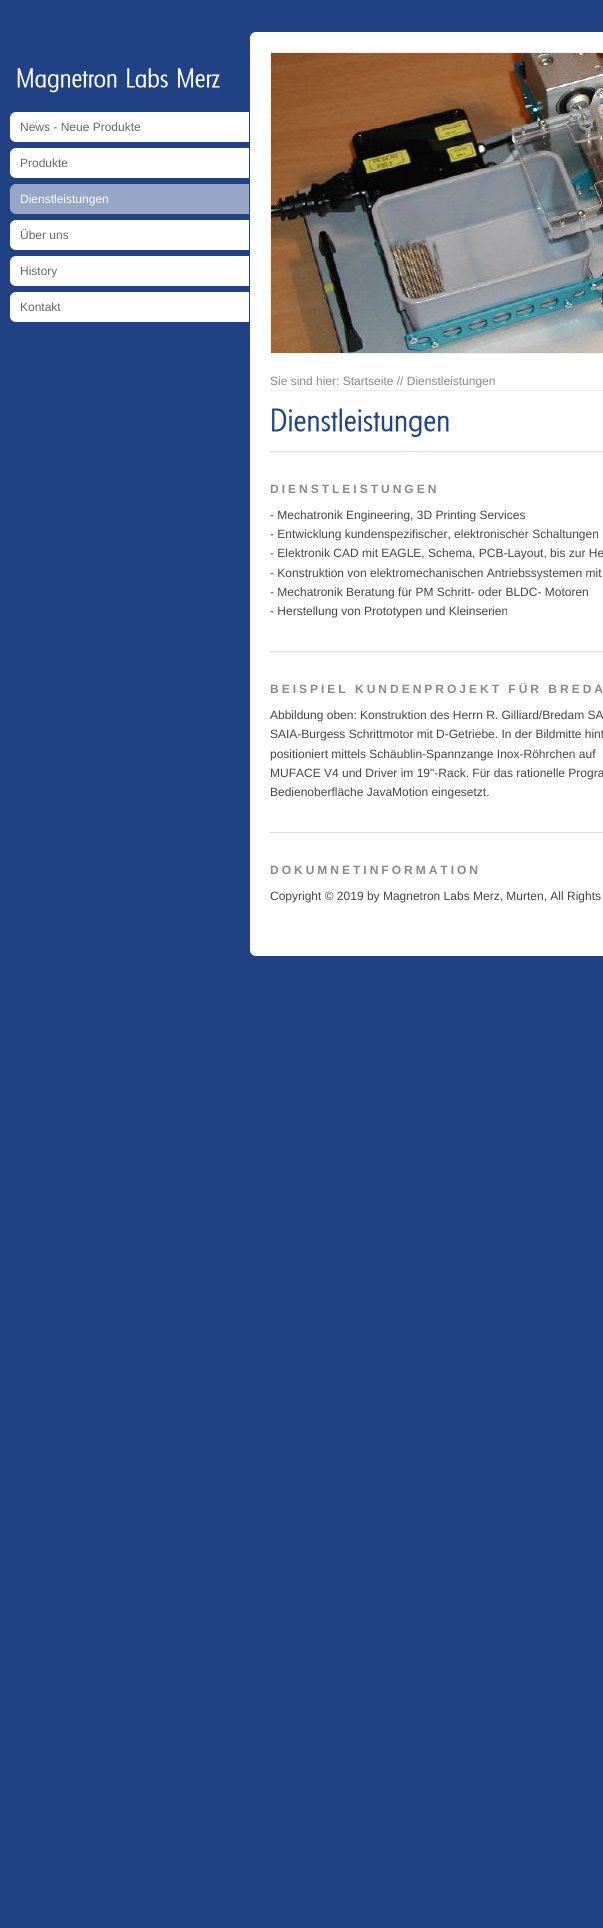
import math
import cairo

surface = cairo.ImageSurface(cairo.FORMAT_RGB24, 603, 1928)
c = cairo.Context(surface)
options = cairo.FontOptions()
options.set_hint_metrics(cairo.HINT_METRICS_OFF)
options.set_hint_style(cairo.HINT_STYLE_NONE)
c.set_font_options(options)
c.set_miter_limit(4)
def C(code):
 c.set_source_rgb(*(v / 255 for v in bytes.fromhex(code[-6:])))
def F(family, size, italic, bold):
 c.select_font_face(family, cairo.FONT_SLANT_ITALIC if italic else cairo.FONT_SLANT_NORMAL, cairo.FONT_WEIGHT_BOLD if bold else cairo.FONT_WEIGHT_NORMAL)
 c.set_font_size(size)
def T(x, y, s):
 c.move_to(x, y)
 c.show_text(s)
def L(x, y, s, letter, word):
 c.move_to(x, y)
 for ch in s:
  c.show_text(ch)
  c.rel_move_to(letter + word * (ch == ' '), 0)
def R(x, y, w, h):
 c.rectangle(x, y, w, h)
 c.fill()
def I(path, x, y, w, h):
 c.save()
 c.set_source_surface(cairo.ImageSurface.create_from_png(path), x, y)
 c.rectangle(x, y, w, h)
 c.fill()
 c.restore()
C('204285')
c.paint()
C('ffffff')
R(250,32,353,924)
I('1.png',250,32,6,6)
I('2.png',17,68,203,25)
I('3.png',10,112,239,30)
F('Liberation Sans',12,0,0)
C('666666')
T(20,131,'News - Neue Produkte')
I('3.png',10,148,239,30)
T(20,167,'Produkte')
I('4.png',10,184,239,30)
C('ffffff')
T(20,203,'Dienstleistungen')
I('3.png',10,220,239,30)
C('666666')
T(20,239,'Über uns')
I('3.png',10,256,239,30)
T(20,275,'History')
I('3.png',10,292,239,30)
T(20,311,'Kontakt')
c.rectangle(270.5,52.5,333,301)
C('f0f0f0')
c.set_line_width(1)
c.stroke()
I('5.png',271,53,332,300)
C('eeeeee')
R(270,390,333,1)
C('888888')
T(270,385,'Sie sind hier: Startseite // Dienstleistungen')
I('6.png',272,408,177,29)
C('dddddd')
R(270,451,333,1)
F('Liberation Sans',12,0,1)
C('888888')
L(270,493,'DIENSTLEISTUNGEN',3,0)
F('Liberation Sans',12,0,0)
C('444444')
T(270,519,'- Mechatronik Engineering, 3D Printing Services')
T(270,538,'- Entwicklung kundenspezifischer, elektronischer Schaltungen')
T(270,557,'- Elektronik CAD mit EAGLE, Schema, PCB-Layout, bis zur He')
T(270,577,'- Konstruktion von elektromechanischen Antriebssystemen mit')
T(270,596,'- Mechatronik Beratung für PM Schritt- oder BLDC- Motoren')
T(270,615,'- Herstellung von Prototypen und Kleinserien')
C('dddddd')
R(270,651,333,1)
F('Liberation Sans',12,0,1)
C('888888')
L(270,693,'BEISPIEL KUNDENPROJEKT FÜR BREDA',3,0)
F('Liberation Sans',12,0,0)
C('444444')
T(270,719,'Abbildung oben: Konstruktion des Herrn R. Gilliard/Bredam SA')
T(270,738,'SAIA-Burgess Schrittmotor mit D-Getriebe. In der Bildmitte hint')
T(270,758,'positioniert mittels Schäublin-Spannzange Inox-Röhrchen auf')
T(270,777,'MUFACE V4 und Driver im 19"-Rack. Für das rationelle Progra')
T(270,796,'Bedienoberfläche JavaMotion eingesetzt.')
C('dddddd')
R(270,832,333,1)
F('Liberation Sans',12,0,1)
C('888888')
L(270,874,'DOKUMNETINFORMATION',3,0)
F('Liberation Sans',12,0,0)
C('444444')
T(270,900,'Copyright © 2019 by Magnetron Labs Merz, Murten, All Rights')
I('7.png',250,950,5,6)
surface.write_to_png('o.png')
